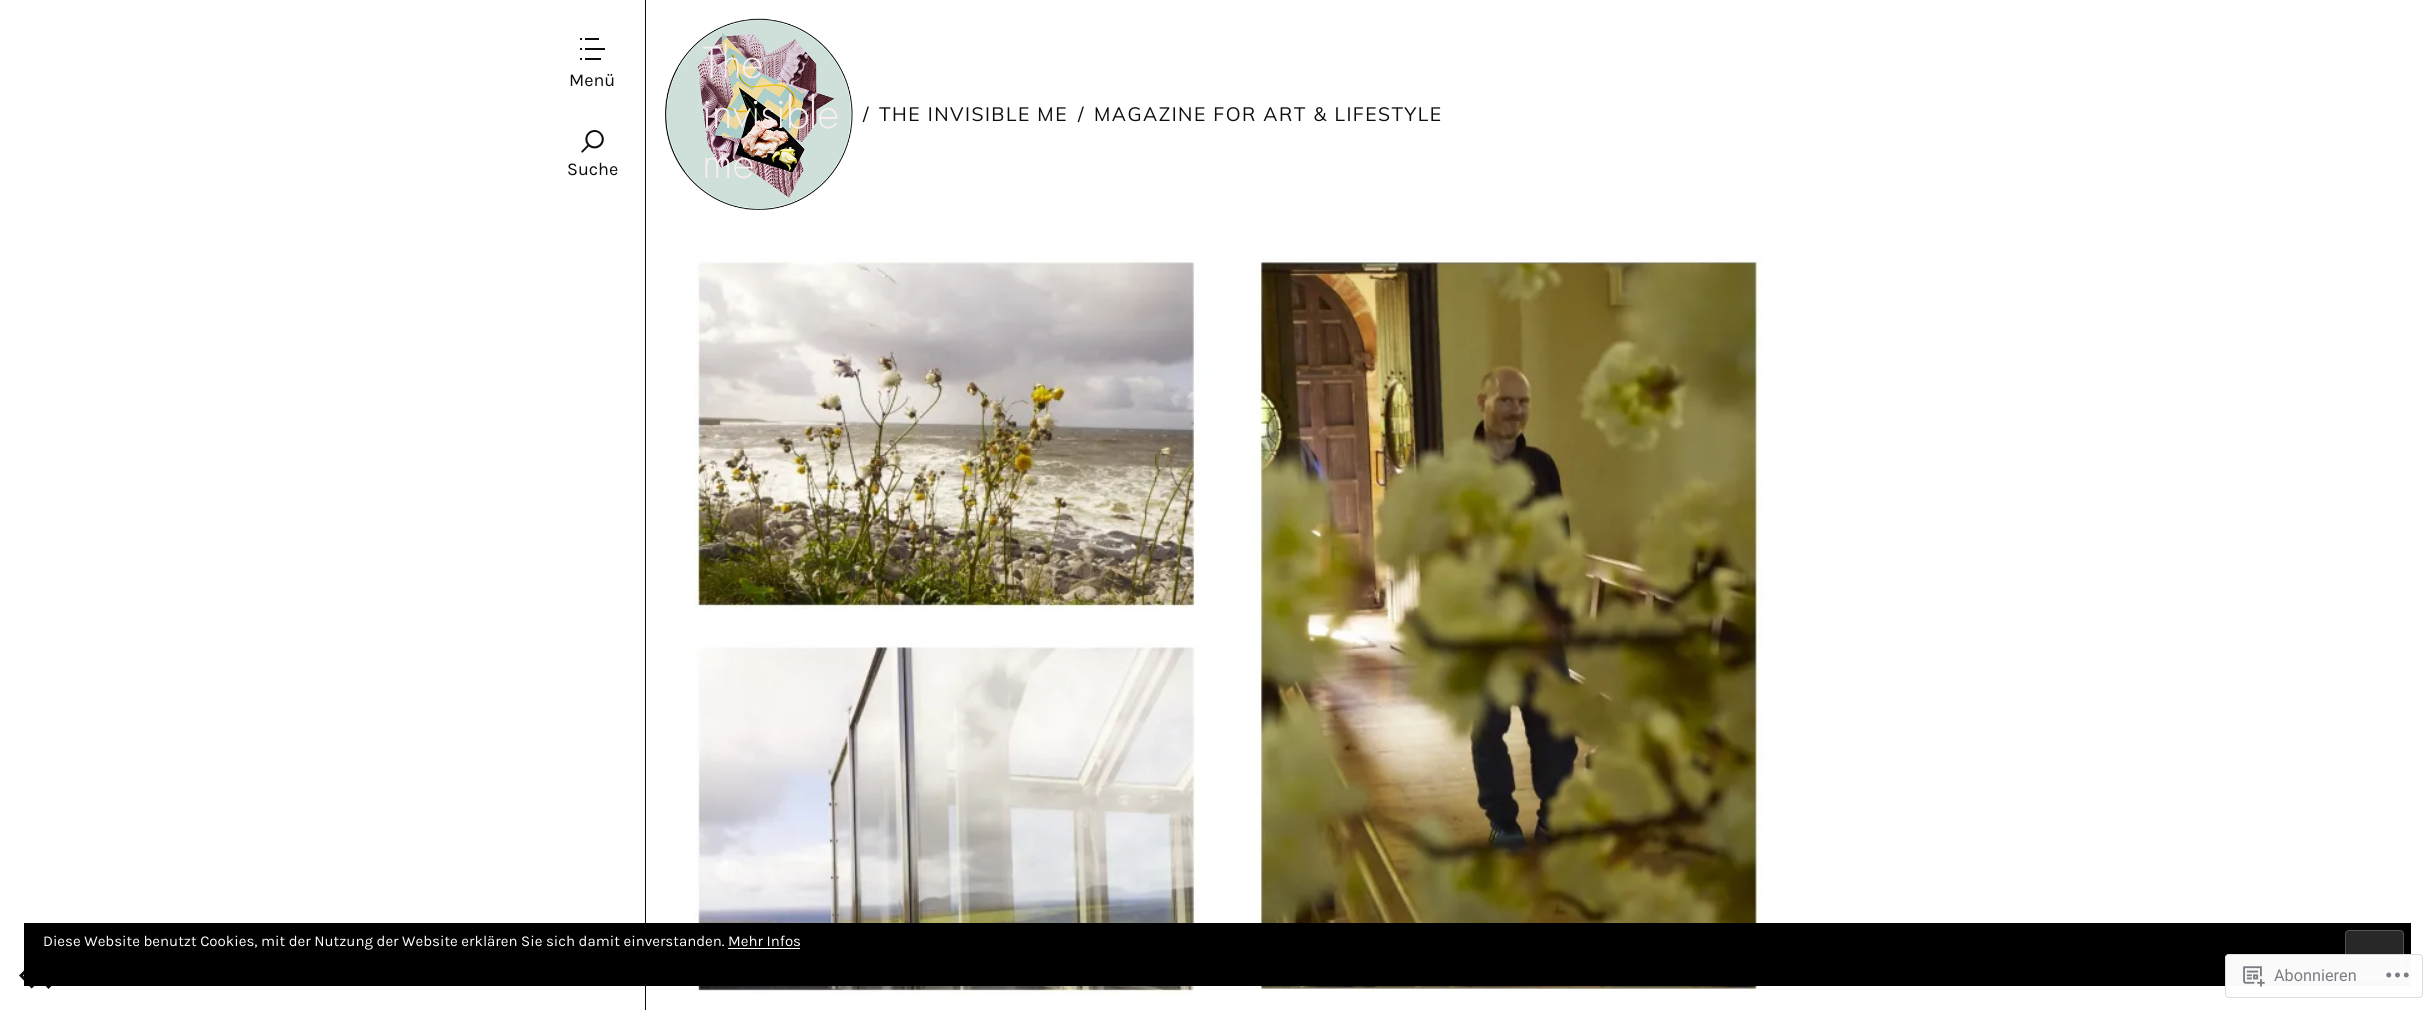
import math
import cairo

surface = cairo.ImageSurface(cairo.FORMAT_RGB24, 2434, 1010)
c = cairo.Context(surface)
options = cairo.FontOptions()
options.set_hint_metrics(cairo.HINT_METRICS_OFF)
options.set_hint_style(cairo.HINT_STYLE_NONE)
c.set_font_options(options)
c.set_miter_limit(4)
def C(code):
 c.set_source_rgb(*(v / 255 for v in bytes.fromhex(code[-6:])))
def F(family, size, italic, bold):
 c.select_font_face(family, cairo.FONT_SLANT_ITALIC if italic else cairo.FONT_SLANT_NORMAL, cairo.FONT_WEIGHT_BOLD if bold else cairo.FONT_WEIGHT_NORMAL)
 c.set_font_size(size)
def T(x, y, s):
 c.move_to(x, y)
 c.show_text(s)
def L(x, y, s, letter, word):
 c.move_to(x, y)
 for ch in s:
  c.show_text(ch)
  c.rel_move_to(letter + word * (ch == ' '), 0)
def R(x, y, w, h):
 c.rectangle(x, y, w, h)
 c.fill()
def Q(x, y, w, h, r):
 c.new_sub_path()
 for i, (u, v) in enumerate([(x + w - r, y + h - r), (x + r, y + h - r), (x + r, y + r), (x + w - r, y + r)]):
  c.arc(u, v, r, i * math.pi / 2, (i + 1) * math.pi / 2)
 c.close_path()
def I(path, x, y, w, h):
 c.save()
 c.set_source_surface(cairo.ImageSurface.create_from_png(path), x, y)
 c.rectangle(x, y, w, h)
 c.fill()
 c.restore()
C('ffffff')
c.paint()
C('0b0e10')
R(645,0,1,1010)
I('1.png',580,38,25,22)
F('Karla',18,0,0)
T(569,86,'Menü')
I('2.png',665,18,188,192)
F('Muli',19.25,0,0)
L(863,121,'/',1.5,0)
L(879,121,'THE INVISIBLE ME',1.5,0)
L(1078,121,'/',1.5,0)
L(1094,121,'MAGAZINE FOR ART & LIFESTYLE',1.5,0)
I('3.png',581,130,23,23)
F('Karla',18,0,0)
T(567,175,'Suche')
c.new_path()
c.move_to(34,965)
c.line_to(31.5,963)
c.line_to(19,975.5)
c.line_to(31.5,988.5)
c.line_to(34,986.5)
c.line_to(23,975.5)
c.close_path()
c.move_to(46,986.5)
c.line_to(48.5,989)
c.line_to(61,976)
c.line_to(48.5,963)
c.line_to(46,965.5)
c.line_to(57,976)
c.close_path()
c.fill()
I('4.png',694,259,1071,737)
C('000000')
R(24,923,2387,63)
F('Karla',15,0,0)
C('ffffff')
T(43,946,'Diese Website benutzt Cookies, mit der Nutzung der Website erklären Sie sich damit einverstanden. Mehr Infos')
C('282828')
Q(2345.5,930.5,58,48,3.5)
c.fill_preserve()
C('535353')
c.set_line_width(1)
c.stroke()
C('ffffff')
R(728,948,72,1)
c.set_source_rgba(1,1,1,0.98)
Q(2225,954,198,44,4)
c.fill()
Q(2225.5,954.5,197,43,3.5)
c.set_source_rgba(0.863,0.863,0.871,0.98)
c.stroke()
I('5.png',2243,966,22,21)
F('Roboto',16.25,0,0)
C('7b7f84')
T(2274,981,'Abonnieren')
I('6.png',2386,972,23,6)
surface.write_to_png('o.png')
